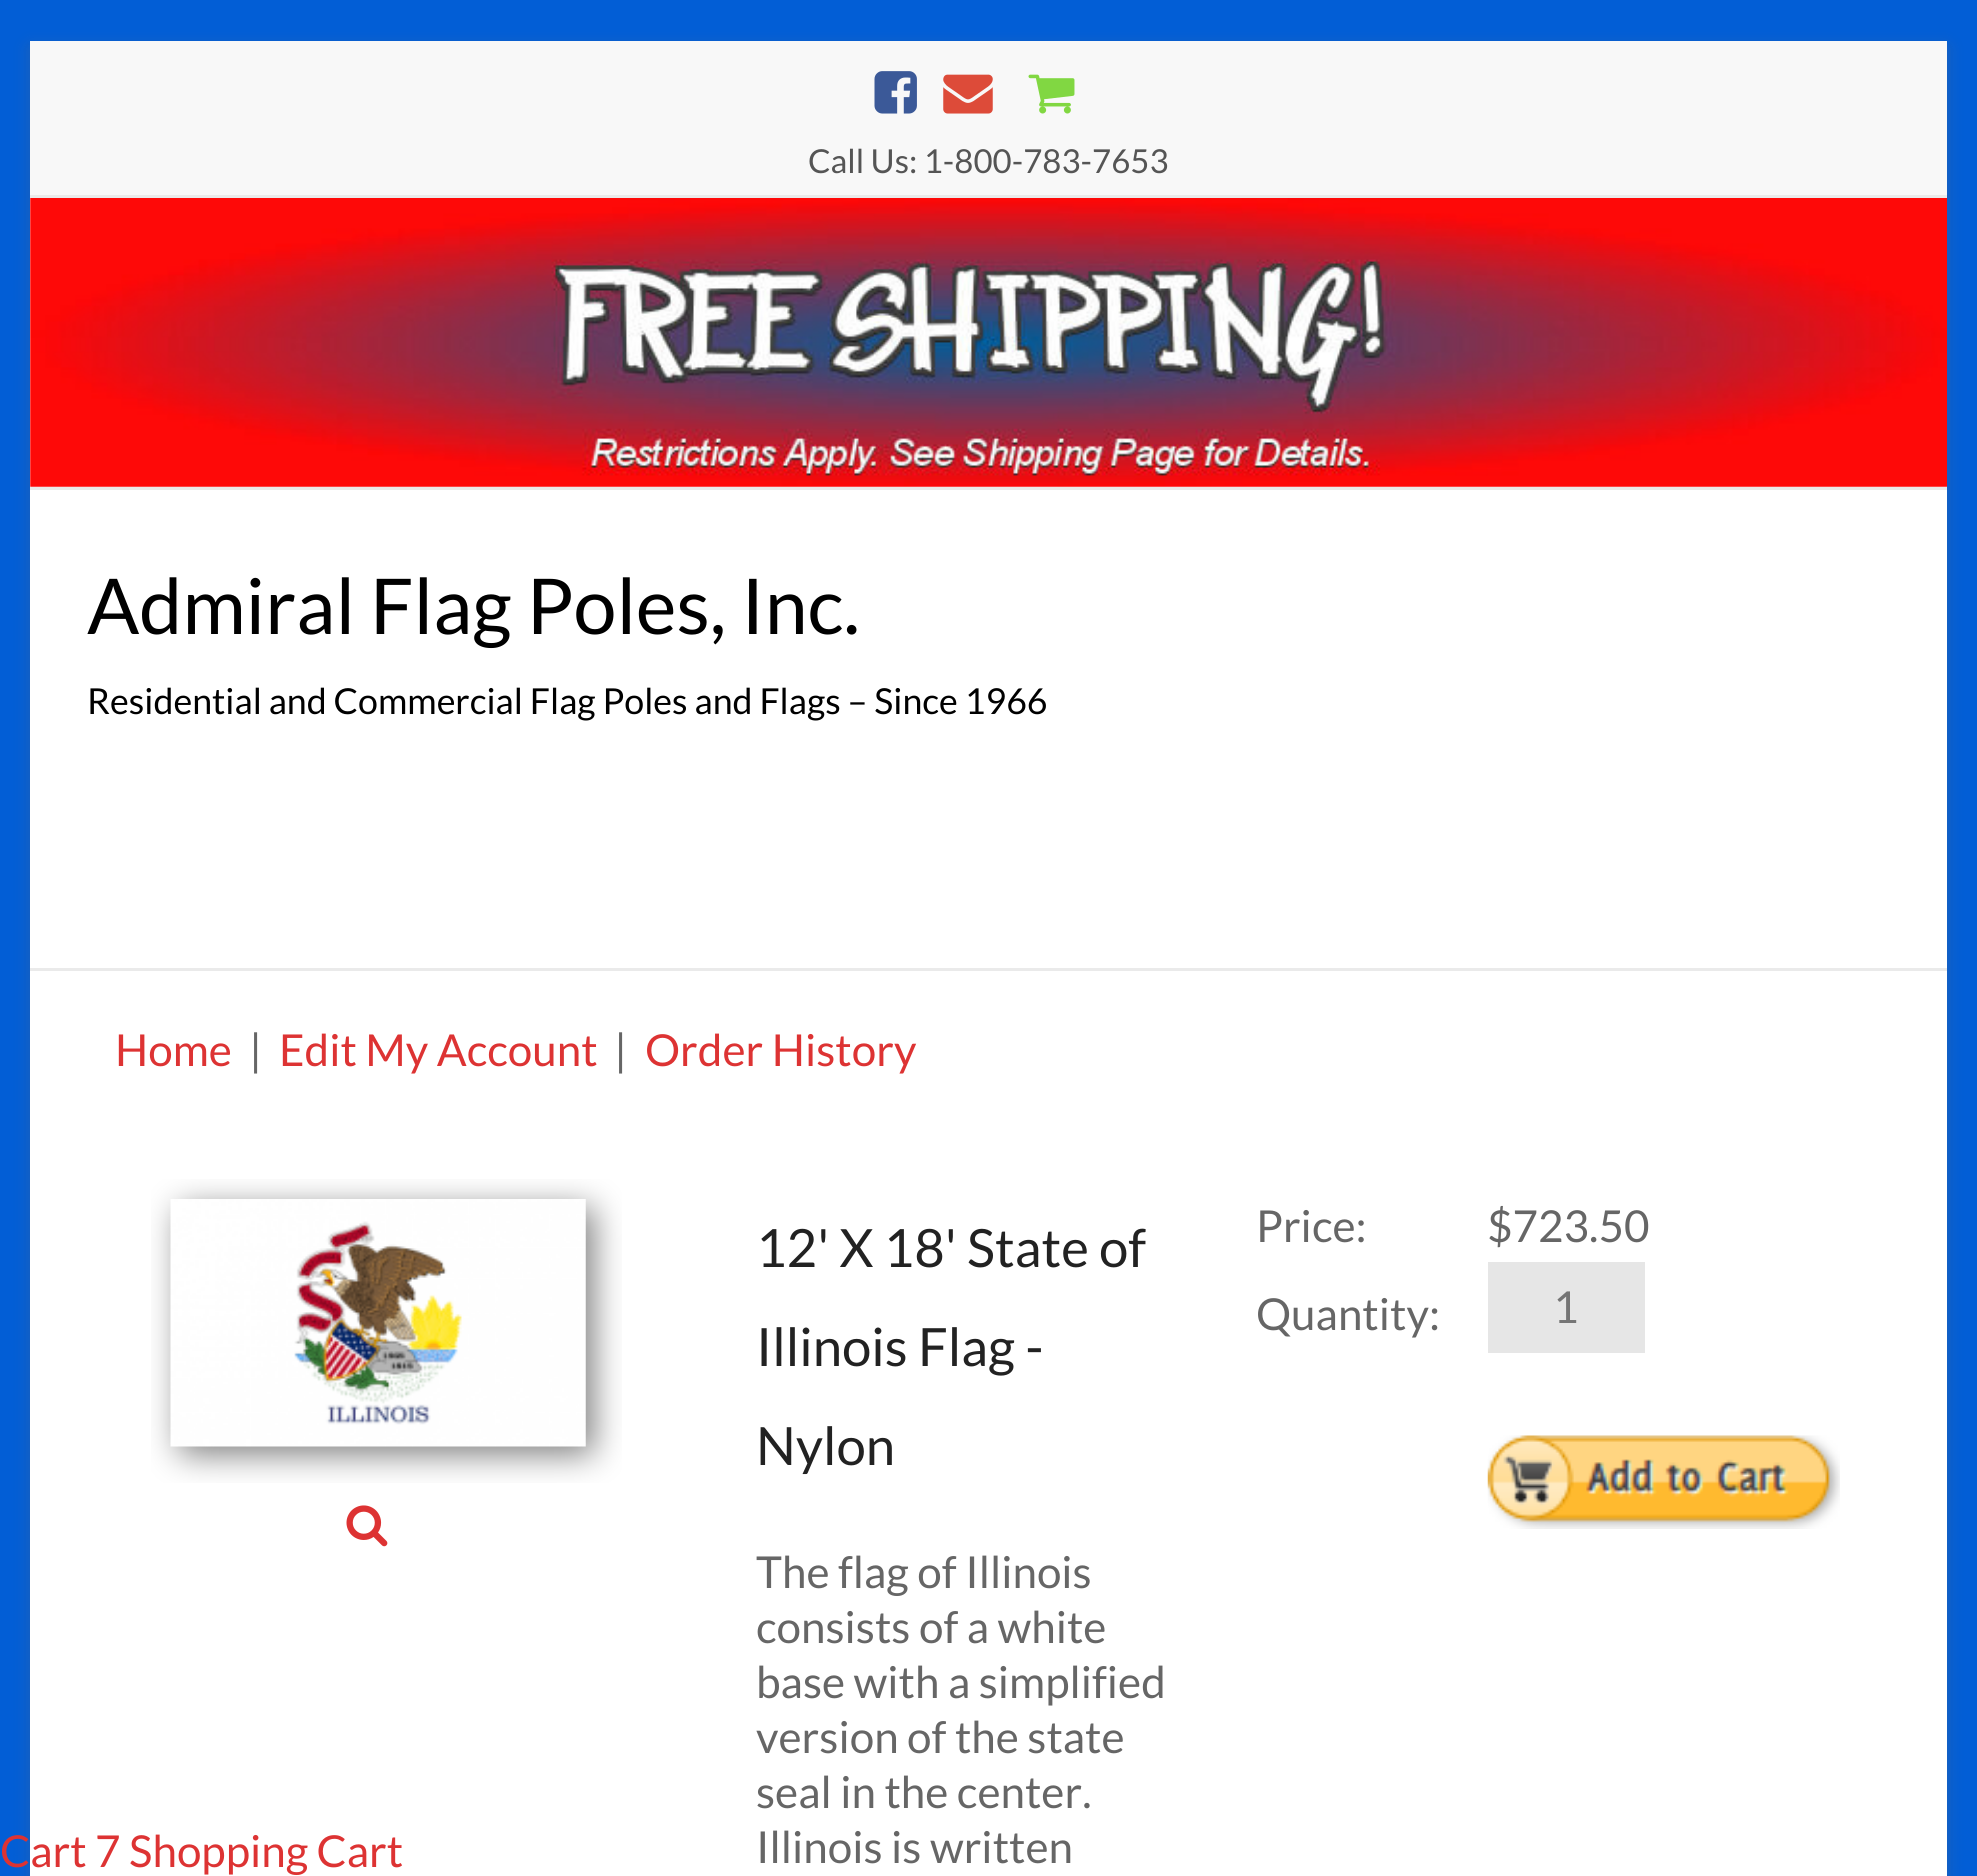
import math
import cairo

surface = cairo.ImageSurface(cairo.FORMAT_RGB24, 1977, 1876)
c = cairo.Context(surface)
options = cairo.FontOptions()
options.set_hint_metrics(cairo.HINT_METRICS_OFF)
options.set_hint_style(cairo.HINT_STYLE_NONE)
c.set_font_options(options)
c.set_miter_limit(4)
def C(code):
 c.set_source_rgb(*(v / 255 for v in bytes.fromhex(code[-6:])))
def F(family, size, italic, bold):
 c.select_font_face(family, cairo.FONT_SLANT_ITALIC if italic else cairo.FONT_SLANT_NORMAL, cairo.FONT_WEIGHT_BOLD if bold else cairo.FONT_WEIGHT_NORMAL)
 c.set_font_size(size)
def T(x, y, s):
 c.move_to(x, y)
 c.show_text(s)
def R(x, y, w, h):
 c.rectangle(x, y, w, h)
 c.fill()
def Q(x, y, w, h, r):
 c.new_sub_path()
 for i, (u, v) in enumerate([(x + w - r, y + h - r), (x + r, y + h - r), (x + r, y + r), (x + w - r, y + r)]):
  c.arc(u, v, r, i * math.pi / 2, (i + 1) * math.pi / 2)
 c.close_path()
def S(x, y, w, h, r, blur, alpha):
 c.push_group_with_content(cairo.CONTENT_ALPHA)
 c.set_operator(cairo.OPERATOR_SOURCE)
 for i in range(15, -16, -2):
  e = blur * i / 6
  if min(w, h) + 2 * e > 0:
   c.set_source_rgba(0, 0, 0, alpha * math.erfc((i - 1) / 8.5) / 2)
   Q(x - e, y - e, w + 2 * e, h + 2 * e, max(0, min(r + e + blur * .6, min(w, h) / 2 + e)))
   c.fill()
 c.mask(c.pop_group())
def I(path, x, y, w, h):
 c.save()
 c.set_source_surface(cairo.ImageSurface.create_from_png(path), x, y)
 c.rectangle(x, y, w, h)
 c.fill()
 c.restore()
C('025ed6')
c.paint()
C('646464')
S(30,47,1917,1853,0,8,.3)
C('ffffff')
R(30,198,1917,1678)
C('f8f8f8')
R(30,41,1917,154)
C('eaeaea')
R(30,195,1917,3)
I('1.png',874,71,43,43)
I('2.png',943,74,50,40)
I('3.png',1028,74,47,40)
F('Lato',33,0,0)
C('555555')
T(808,173,'Call Us: 1-800-783-7653')
I('4.png',30,198,1917,289)
C('eaeaea')
R(30,487,1917,3)
F('Lato',77,0,0)
C('000000')
T(87,634,'Admiral Flag Poles, Inc.')
F('Lato',35.75,0,0)
T(87,714,'Residential and Commercial Flag Poles and Flags – Since 1966')
C('eaeaea')
R(30,968,1917,3)
F('Lato',44,0,0)
C('dd3333')
T(115,1066,'Home')
C('666666')
T(249,1066,'|')
C('dd3333')
T(279,1066,'Edit My Account')
C('666666')
T(614,1066,'|')
C('dd3333')
T(645,1066,'Order History')
I('5.png',151,1179,471,304)
I('6.png',346,1505,42,42)
F('Lato',52.75,0,0)
C('222222')
T(756,1267,'12\' X 18\' State of')
T(756,1366,'Illinois Flag -')
T(756,1465,'Nylon')
F('Lato',44,0,0)
C('666666')
T(756,1588,'The flag of Illinois')
T(756,1643,'consists of a white')
T(756,1698,'base with a simplified')
T(756,1753,'version of the state')
T(756,1808,'seal in the center.')
T(756,1863,'Illinois is written')
T(1256,1242,'Price:')
T(1487,1242,'$723.50')
T(1256,1330,'Quantity:')
C('e6e6e6')
R(1488,1262,157,91)
C('757575')
T(1553,1323,'1')
I('7.png',1487,1435,353,94)
C('dd3333')
T(0,1867,'Cart 7 Shopping Cart')
surface.write_to_png('o.png')
